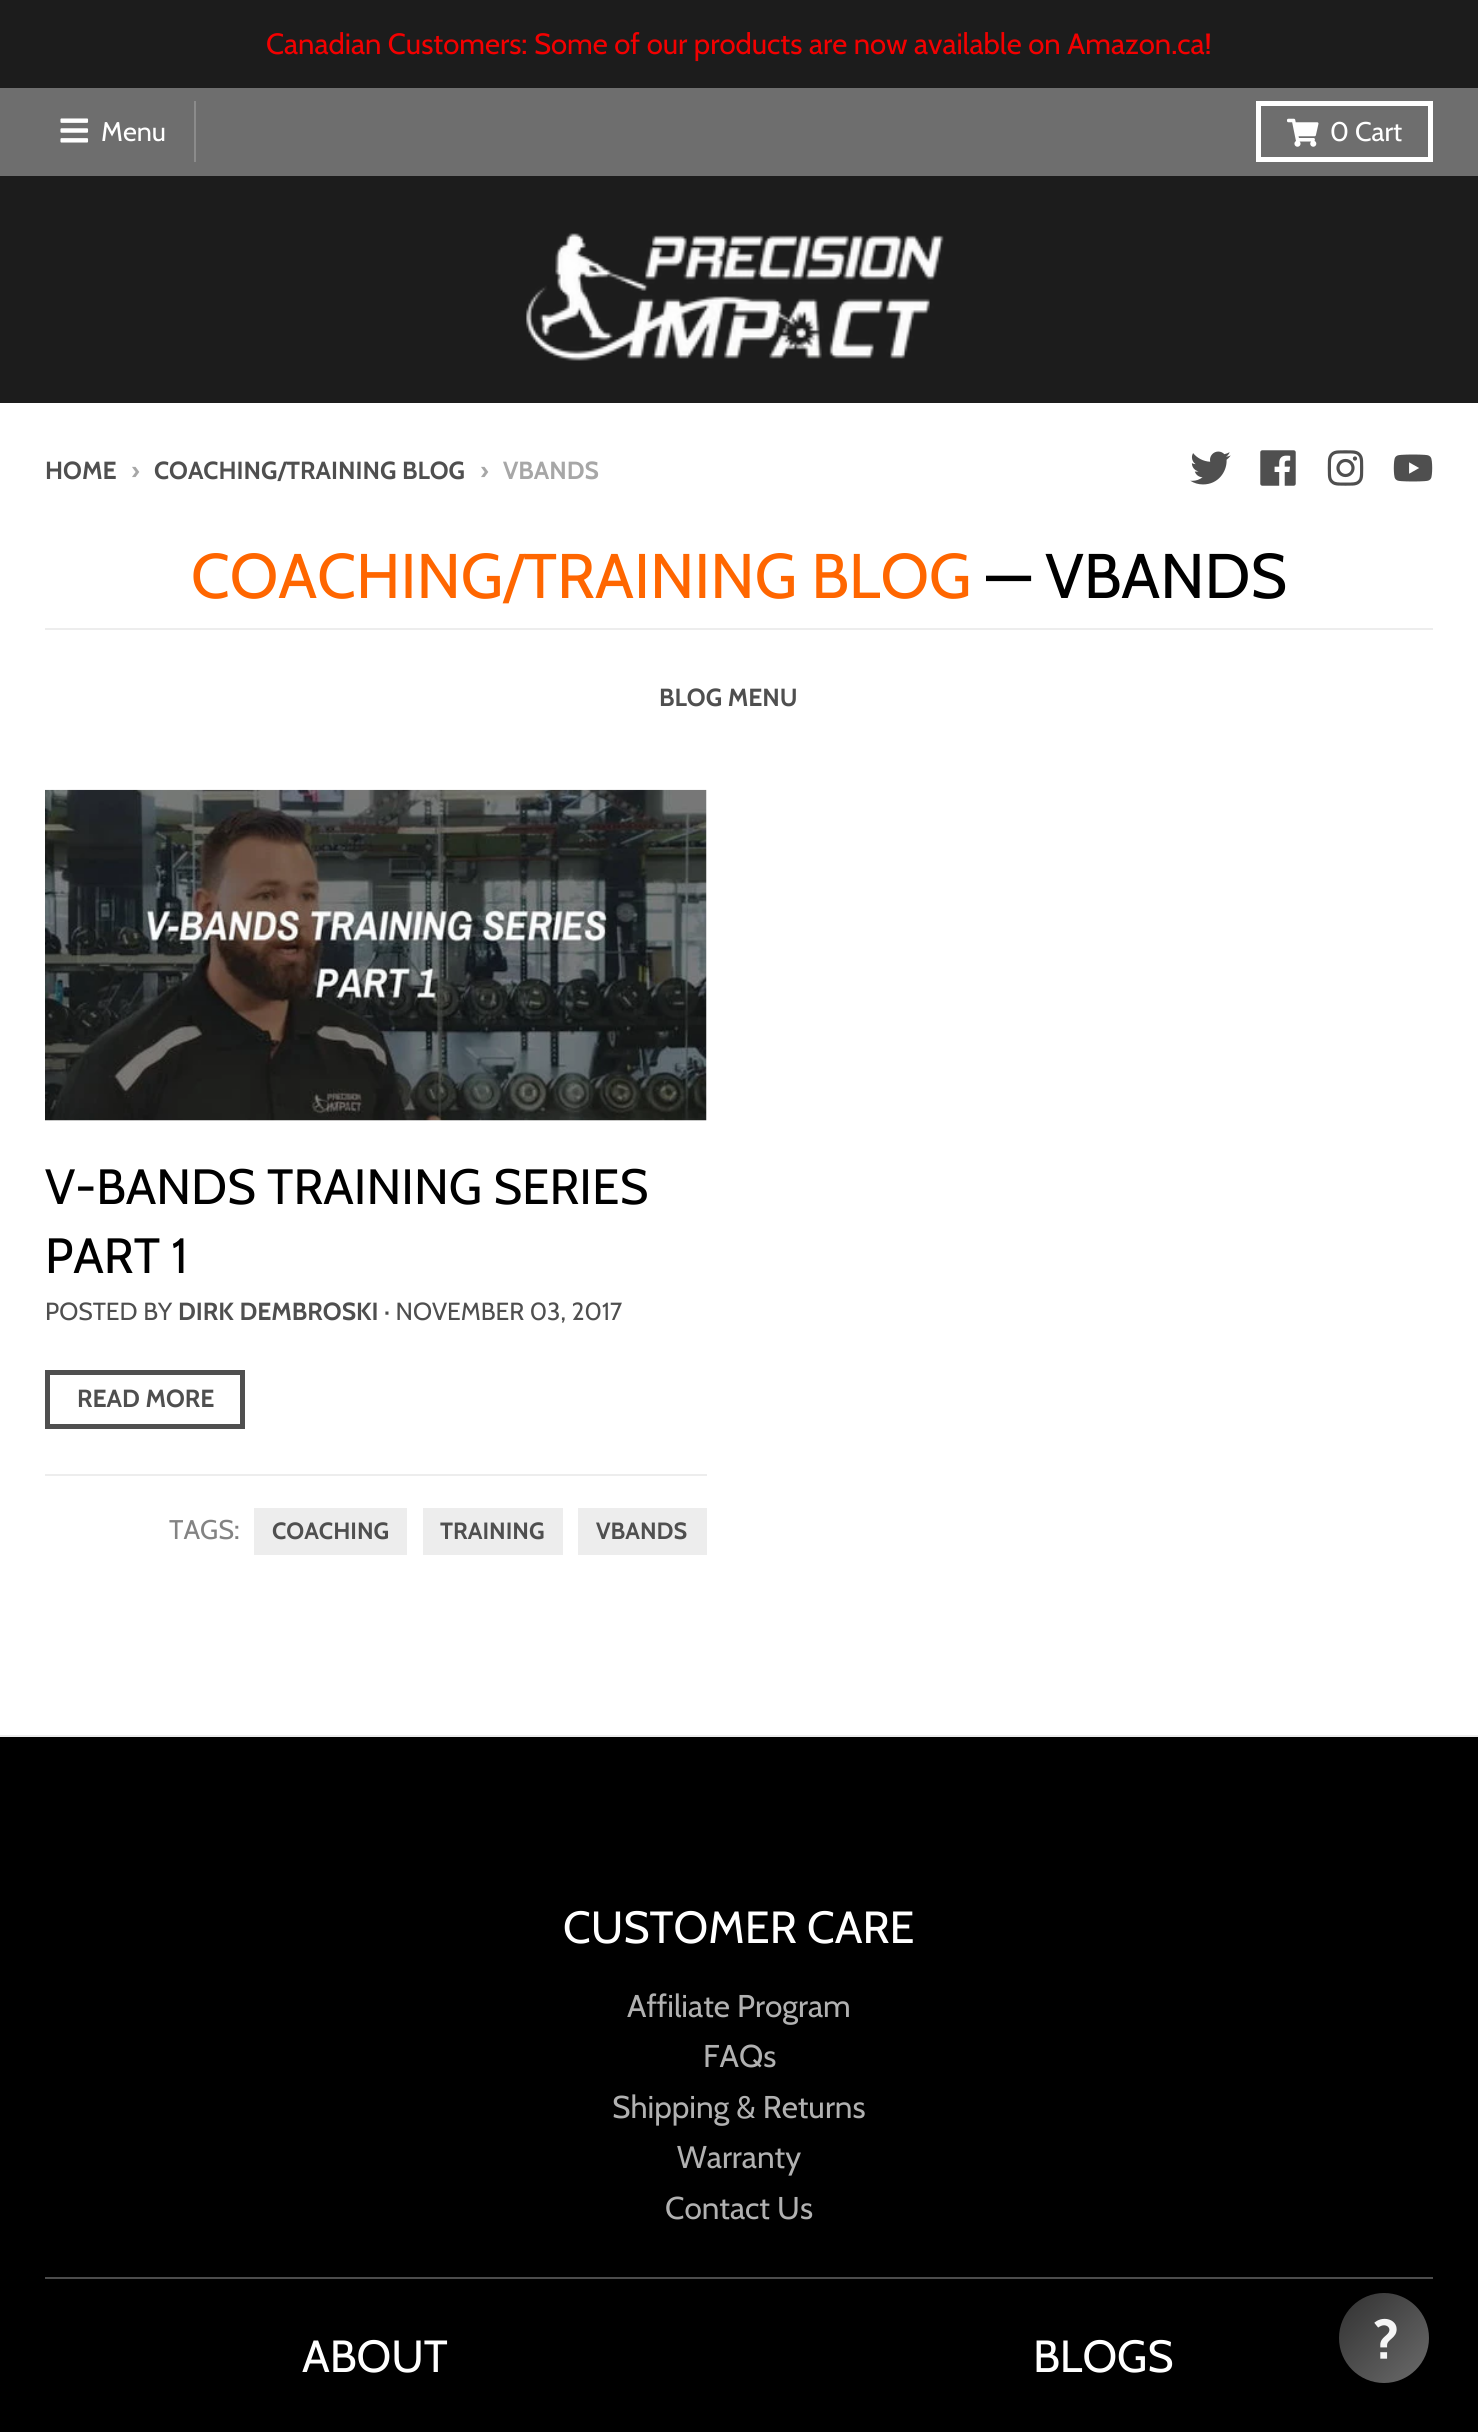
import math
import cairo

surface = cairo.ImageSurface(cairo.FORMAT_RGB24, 1478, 2432)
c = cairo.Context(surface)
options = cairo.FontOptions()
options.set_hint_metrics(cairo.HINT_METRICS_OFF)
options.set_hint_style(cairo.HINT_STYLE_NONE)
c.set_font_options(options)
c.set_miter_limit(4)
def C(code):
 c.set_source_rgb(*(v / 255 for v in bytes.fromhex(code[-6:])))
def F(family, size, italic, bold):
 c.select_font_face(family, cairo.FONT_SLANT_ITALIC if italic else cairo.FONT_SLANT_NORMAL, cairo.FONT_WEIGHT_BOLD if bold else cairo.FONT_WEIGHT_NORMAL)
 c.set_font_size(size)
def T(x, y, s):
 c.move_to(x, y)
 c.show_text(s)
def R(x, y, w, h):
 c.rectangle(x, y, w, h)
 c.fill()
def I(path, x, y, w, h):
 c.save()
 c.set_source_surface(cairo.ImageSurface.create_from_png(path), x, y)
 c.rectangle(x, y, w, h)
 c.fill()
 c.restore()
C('ffffff')
c.paint()
C('1c1c1c')
R(0,0,1478,88)
F('Cabin',29.25,0,0)
C('f30000')
T(266,54,'Canadian Customers: Some of our products are now available on Amazon.ca!')
C('6e6e6e')
R(0,88,1478,88)
C('8b8b8b')
R(194,101,2,61)
I('1.png',60,118,29,25)
F('Cabin',27,0,0)
C('ffffff')
T(101,141,'Menu')
c.rectangle(1258.5,103.5,172,56)
c.set_line_width(5)
c.stroke()
I('2.png',1287,118,32,29)
T(1330,141,'0 Cart')
C('1c1c1c')
R(0,176,1478,227)
I('3.png',526,233,418,128)
C('ededed')
R(0,1735,1478,2)
F('Cabin',24.75,0,1)
C('4f4f4f')
T(45,479,'HOME')
C('a7a7a7')
T(131,479,'›')
C('4f4f4f')
T(154,479,'COACHING/TRAINING BLOG')
C('a7a7a7')
T(480,479,'›')
T(503,479,'VBANDS')
I('4.png',1190,451,41,34)
I('5.png',1260,450,36,36)
I('6.png',1327,450,37,36)
I('7.png',1393,454,40,28)
C('ededed')
R(45,628,1388,2)
F('Cabin',63,0,0)
C('ff6600')
T(191,598,'COACHING/TRAINING BLOG')
C('000000')
T(986,598,'— VBANDS')
F('Cabin',24.75,0,1)
C('4f4f4f')
T(659,706,'BLOG MENU')
I('8.png',45,789,662,332)
F('Cabin',49.5,0,0)
C('000000')
T(45,1204,'V-BANDS TRAINING SERIES')
T(45,1273,'PART 1')
F('Cabin',24.75,0,0)
C('4f4f4f')
T(45,1320,'POSTED BY')
F('Cabin',24.75,0,1)
T(178,1320,'DIRK DEMBROSKI')
F('Cabin',24.75,0,0)
T(384,1320,'· NOVEMBER 03, 2017')
c.rectangle(47.5,1372.5,195,54)
c.stroke()
F('Cabin',24.75,0,1)
T(77,1407,'READ MORE')
C('ededed')
R(45,1474,662,2)
F('Cabin',27,0,0)
C('838383')
T(169,1539,'TAGS:')
C('ededed')
R(272,1508,117,47)
F('Cabin',23.5,0,1)
C('4f4f4f')
T(272,1539,'COACHING')
C('ededed')
c.new_path()
c.move_to(254,1508)
c.line_to(254,1555)
c.line_to(371,1555)
c.line_to(272,1555)
c.line_to(272,1508)
c.close_path()
c.fill()
c.new_path()
c.move_to(290,1555)
c.line_to(407,1555)
c.line_to(407,1508)
c.line_to(389,1508)
c.line_to(389,1555)
c.close_path()
c.fill()
c.new_path()
c.move_to(423,1508)
c.line_to(423,1555)
c.line_to(527,1555)
c.line_to(441,1555)
c.line_to(441,1508)
c.close_path()
c.fill()
c.new_path()
c.move_to(459,1555)
c.line_to(563,1555)
c.line_to(563,1508)
c.line_to(544,1508)
c.line_to(544,1555)
c.close_path()
c.fill()
R(441,1508,103,47)
C('4f4f4f')
T(440,1539,'TRAINING')
C('ededed')
c.new_path()
c.move_to(578,1508)
c.line_to(578,1555)
c.line_to(671,1555)
c.line_to(596,1555)
c.line_to(596,1508)
c.close_path()
c.fill()
R(596,1508,92,47)
C('4f4f4f')
T(596,1539,'VBANDS')
C('ededed')
c.new_path()
c.move_to(614,1555)
c.line_to(707,1555)
c.line_to(707,1508)
c.line_to(688,1508)
c.line_to(688,1555)
c.close_path()
c.fill()
C('000000')
R(0,1737,1478,695)
F('Cabin',45,0,0)
C('ffffff')
T(563,1943,'CUSTOMER CARE')
C('4c4c4c')
R(45,2277,1388,2)
F('Cabin',31.5,0,0)
C('b1b1b1')
T(627,2017,'Affiliate Program')
T(703,2067,'FAQs')
T(612,2118,'Shipping & Returns')
T(677,2168,'Warranty')
T(665,2219,'Contact Us')
F('Cabin',45,0,0)
C('ffffff')
T(302,2372,'ABOUT')
T(1033,2372,'BLOGS')
gradient = cairo.LinearGradient(1339,2293,1429,2383)
gradient.add_color_stop_rgba(0,0.192,0.192,0.192,1)
gradient.add_color_stop_rgba(1,0.42,0.42,0.42,1)
c.set_source(gradient)
c.new_path()
c.arc(1384,2338,45,0,2 * math.pi)
c.fill()
I('9.png',1374,2318,23,41)
surface.write_to_png('o.png')
